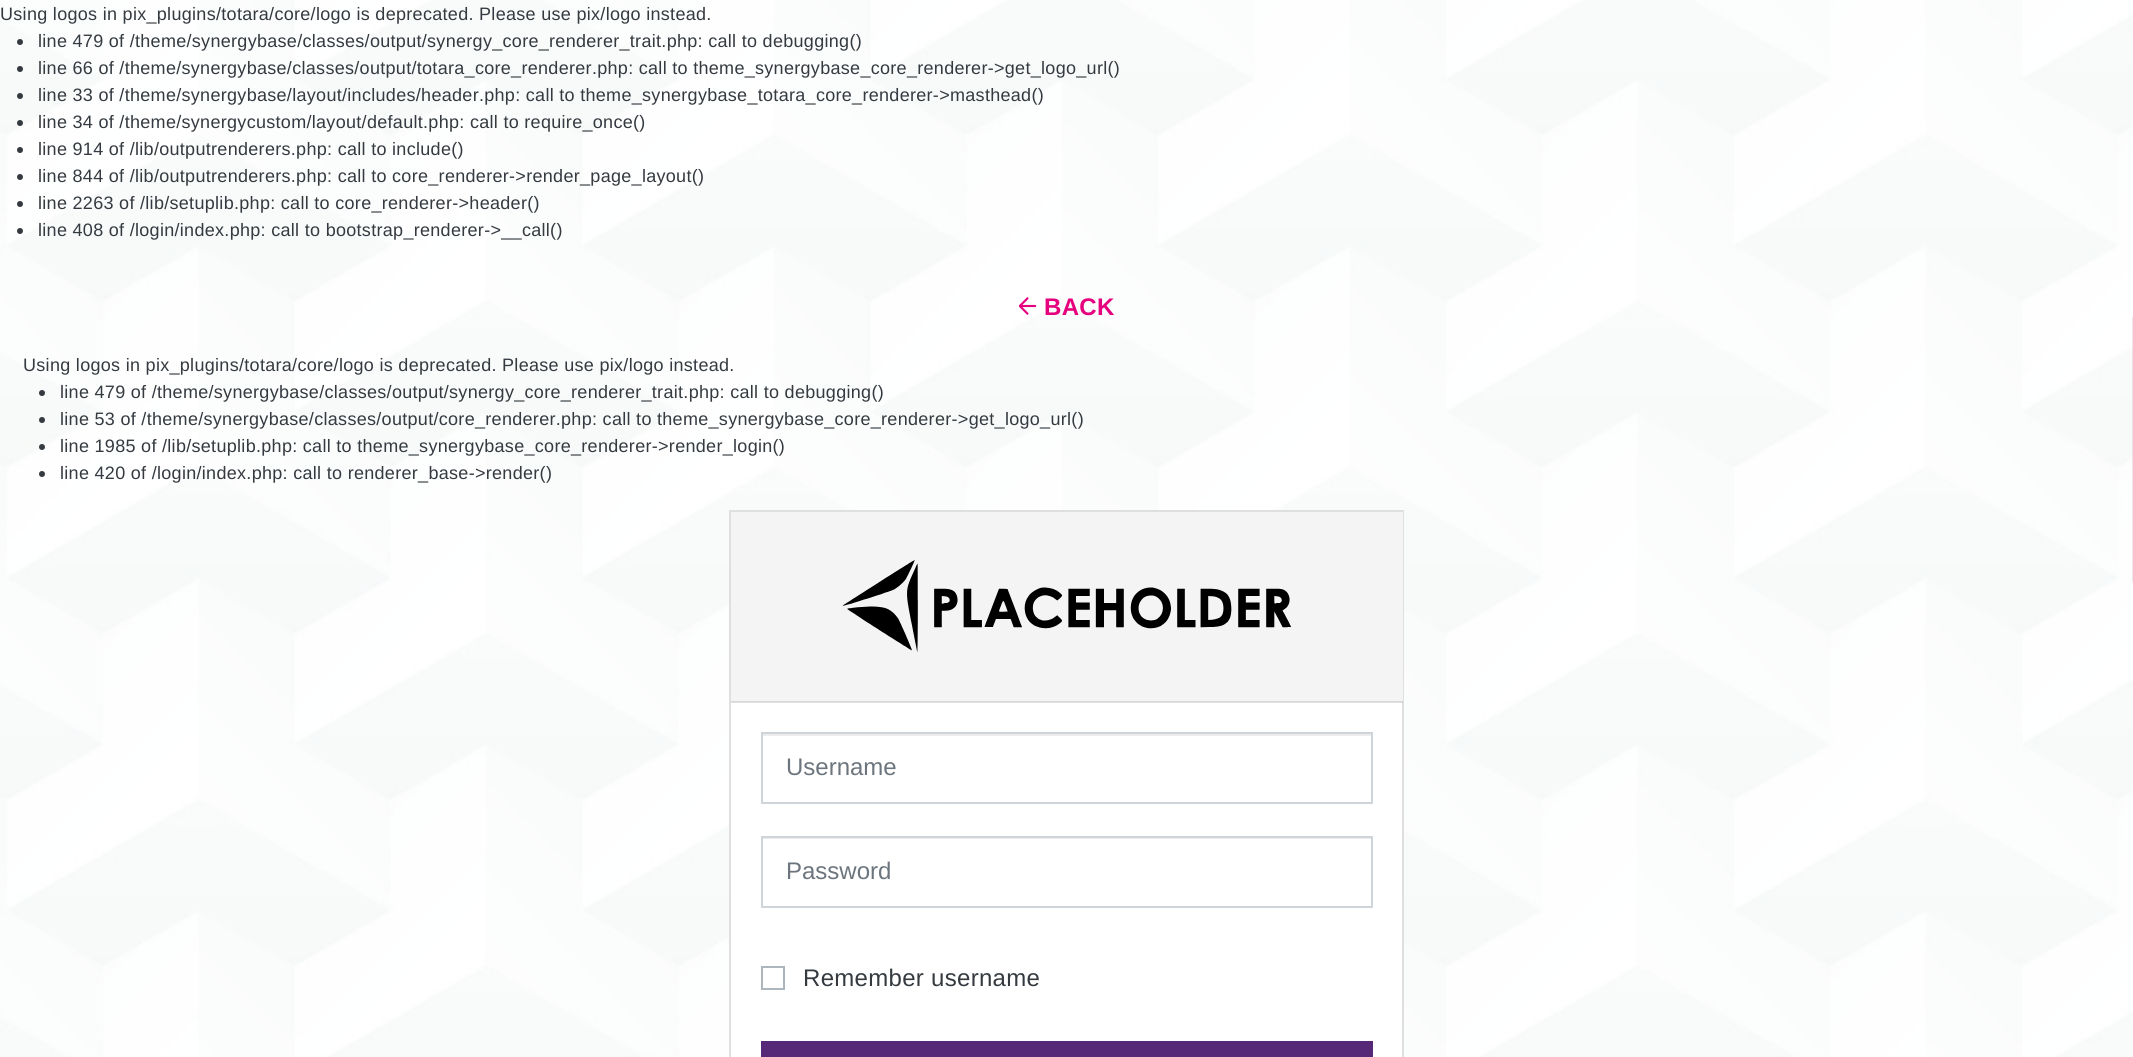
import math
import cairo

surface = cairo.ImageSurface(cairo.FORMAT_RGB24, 2133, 1057)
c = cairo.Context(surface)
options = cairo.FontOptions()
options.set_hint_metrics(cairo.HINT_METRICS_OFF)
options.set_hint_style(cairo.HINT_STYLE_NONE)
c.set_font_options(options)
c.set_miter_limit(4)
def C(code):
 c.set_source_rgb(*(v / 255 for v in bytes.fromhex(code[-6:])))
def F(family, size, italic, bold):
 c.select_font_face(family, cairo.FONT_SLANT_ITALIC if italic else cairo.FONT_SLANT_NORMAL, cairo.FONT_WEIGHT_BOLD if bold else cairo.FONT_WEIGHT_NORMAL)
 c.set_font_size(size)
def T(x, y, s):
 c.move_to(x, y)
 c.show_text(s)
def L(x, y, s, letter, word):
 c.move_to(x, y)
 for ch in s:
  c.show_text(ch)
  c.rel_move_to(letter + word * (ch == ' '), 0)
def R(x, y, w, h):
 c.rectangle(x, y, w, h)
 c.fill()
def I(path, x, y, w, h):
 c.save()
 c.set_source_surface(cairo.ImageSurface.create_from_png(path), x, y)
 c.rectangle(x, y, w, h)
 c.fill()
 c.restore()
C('ffffff')
c.paint()
I('1.png',2132,316,1,267)
I('2.png',0,0,2133,1057)
F('Liberation Sans',18,0,0)
C('343a40')
L(0,20,'Using logos in pix_plugins/totara/core/logo is deprecated. Please use pix/logo instead.',.3,0)
c.new_path()
c.arc(20,42,3,0,2 * math.pi)
c.fill()
L(38,47,'line 479 of /theme/synergybase/classes/output/synergy_core_renderer_trait.php: call to debugging()',.3,0)
c.new_path()
c.arc(20,69,3,0,2 * math.pi)
c.fill()
L(38,74,'line 66 of /theme/synergybase/classes/output/totara_core_renderer.php: call to theme_synergybase_core_renderer->get_logo_url()',.3,0)
c.new_path()
c.arc(20,96,3,0,2 * math.pi)
c.fill()
L(38,101,'line 33 of /theme/synergybase/layout/includes/header.php: call to theme_synergybase_totara_core_renderer->masthead()',.3,0)
c.new_path()
c.arc(20,123,3,0,2 * math.pi)
c.fill()
L(38,128,'line 34 of /theme/synergycustom/layout/default.php: call to require_once()',.3,0)
c.new_path()
c.arc(20,150,3,0,2 * math.pi)
c.fill()
L(38,155,'line 914 of /lib/outputrenderers.php: call to include()',.3,0)
c.new_path()
c.arc(20,177,3,0,2 * math.pi)
c.fill()
L(38,182,'line 844 of /lib/outputrenderers.php: call to core_renderer->render_page_layout()',.3,0)
c.new_path()
c.arc(20,204,3,0,2 * math.pi)
c.fill()
L(38,209,'line 2263 of /lib/setuplib.php: call to core_renderer->header()',.3,0)
c.new_path()
c.arc(20,231,3,0,2 * math.pi)
c.fill()
L(38,236,'line 408 of /login/index.php: call to bootstrap_renderer->__call()',.3,0)
I('3.png',1019,297,18,18)
F('Liberation Sans',24,0,1)
C('e6007e')
L(1044,315,'BACK',.3,0)
F('Liberation Sans',18,0,0)
C('343a40')
L(23,371,'Using logos in pix_plugins/totara/core/logo is deprecated. Please use pix/logo instead.',.3,0)
c.new_path()
c.arc(42,393,3,0,2 * math.pi)
c.fill()
L(60,398,'line 479 of /theme/synergybase/classes/output/synergy_core_renderer_trait.php: call to debugging()',.3,0)
c.new_path()
c.arc(42,420,3,0,2 * math.pi)
c.fill()
L(60,425,'line 53 of /theme/synergybase/classes/output/core_renderer.php: call to theme_synergybase_core_renderer->get_logo_url()',.3,0)
c.new_path()
c.arc(42,447,3,0,2 * math.pi)
c.fill()
L(60,452,'line 1985 of /lib/setuplib.php: call to theme_synergybase_core_renderer->render_login()',.3,0)
c.new_path()
c.arc(42,474,3,0,2 * math.pi)
c.fill()
L(60,479,'line 420 of /login/index.php: call to renderer_base->render()',.3,0)
C('ffffff')
R(731,702,671,355)
c.rectangle(730,511,673,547)
C('dfdfdf')
c.stroke()
C('f4f4f4')
R(731,512,672,190)
c.set_source_rgba(0,0,0,0.12)
R(731,701,672,2)
I('4.png',842,560,449,92)
C('ececec')
R(762,734,609,2)
c.rectangle(762,733,610,70)
C('ced4da')
c.stroke()
F('Liberation Sans',24,0,0)
C('6c757d')
T(786,775,'Username')
C('ececec')
R(762,838,609,1)
c.rectangle(762,837,610,70)
C('ced4da')
c.stroke()
C('6c757d')
T(786,879,'Password')
c.rectangle(762,967,22,22)
C('adb5bd')
c.stroke()
C('343a40')
L(803,986,'Remember username',.3,0)
C('562877')
R(761,1041,612,16)
surface.write_to_png('o.png')
